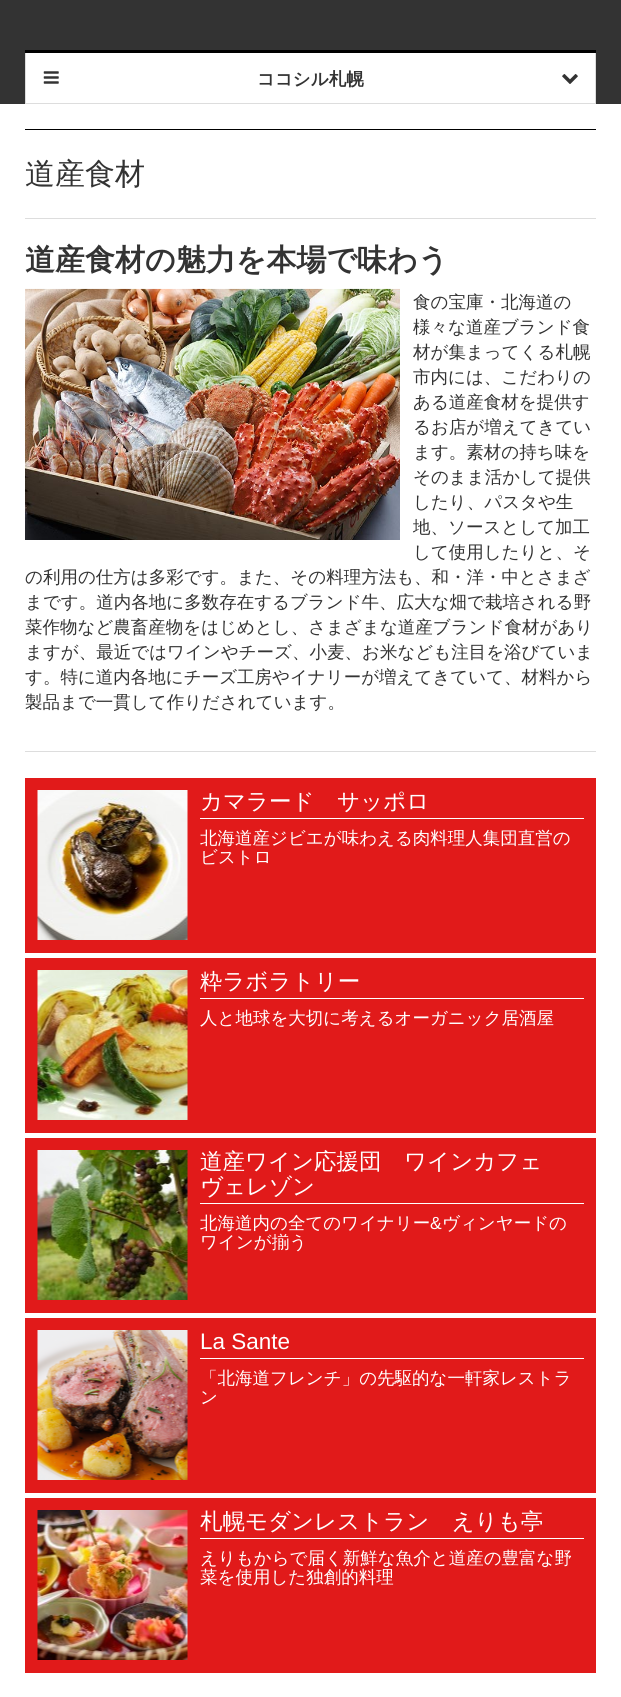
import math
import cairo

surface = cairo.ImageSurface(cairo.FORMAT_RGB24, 621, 1697)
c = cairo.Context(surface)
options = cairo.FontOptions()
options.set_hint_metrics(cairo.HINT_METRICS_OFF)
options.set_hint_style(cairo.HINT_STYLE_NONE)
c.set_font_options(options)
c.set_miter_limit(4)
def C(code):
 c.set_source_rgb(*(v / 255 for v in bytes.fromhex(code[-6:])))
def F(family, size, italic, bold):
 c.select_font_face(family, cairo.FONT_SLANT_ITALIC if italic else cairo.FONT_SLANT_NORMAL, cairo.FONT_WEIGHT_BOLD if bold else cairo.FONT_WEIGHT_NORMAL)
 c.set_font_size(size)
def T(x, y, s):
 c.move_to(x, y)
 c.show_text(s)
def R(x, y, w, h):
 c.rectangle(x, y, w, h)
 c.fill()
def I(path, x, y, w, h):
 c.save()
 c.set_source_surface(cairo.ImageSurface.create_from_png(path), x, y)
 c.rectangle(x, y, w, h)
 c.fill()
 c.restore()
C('ffffff')
c.paint()
C('333333')
R(0,0,621,104)
C('ffffff')
R(26,53,569,50)
C('000000')
R(25,50,571,3)
C('dddddd')
R(595,53,1,51)
R(25,103,571,1)
R(25,53,1,51)
I('1.png',43,71,16,13)
F('WenQuanYi Zen Hei',17.5,0,1)
C('333333')
T(257,85,'ココシル札幌')
I('2.png',562,74,16,10)
C('000000')
R(25,129,571,1)
C('dddddd')
R(25,218,571,1)
F('WenQuanYi Zen Hei Medium',30,0,0)
C('333333')
T(25,184,'道産食材')
F('WenQuanYi Zen Hei',30,0,1)
T(25,270,'道産食材の魅力を本場で味わう')
I('3.png',25,288,375,252)
F('WenQuanYi Zen Hei Medium',17.5,0,0)
T(413,308,'食の宝庫・北海道の')
T(413,333,'様々な道産ブランド食')
T(413,358,'材が集まってくる札幌')
T(413,383,'市内には、こだわりの')
T(413,408,'ある道産食材を提供す')
T(413,433,'るお店が増えてきてい')
T(413,458,'ます。素材の持ち味を')
T(413,483,'そのまま活かして提供')
T(413,508,'したり、パスタや生')
T(413,533,'地、ソースとして加工')
T(413,558,'して使用したりと、そ')
T(25,583,'の利用の仕方は多彩です。また、その料理方法も、和・洋・中とさまざ')
T(25,608,'まです。道内各地に多数存在するブランド牛、広大な畑で栽培される野')
T(25,633,'菜作物など農畜産物をはじめとし、さまざまな道産ブランド食材があり')
T(25,658,'ますが、最近ではワインやチーズ、小麦、お米なども注目を浴びていま')
T(25,683,'す。特に道内各地にチーズ工房やイナリーが増えてきていて、材料から')
T(25,708,'製品まで一貫して作りだされています。')
C('dddddd')
R(25,751,571,1)
C('e11a1a')
R(25,778,571,175)
I('4.png',37,790,151,150)
C('ffffff')
R(200,818,384,1)
F('WenQuanYi Zen Hei Medium',22.5,0,0)
T(200,809,'カマラード　サッポロ')
F('WenQuanYi Zen Hei Medium',17.5,0,0)
T(200,844,'北海道産ジビエが味わえる肉料理人集団直営の')
T(200,863,'ビストロ')
C('e11a1a')
R(25,958,571,175)
I('5.png',37,970,151,150)
C('ffffff')
R(200,998,384,1)
F('WenQuanYi Zen Hei Medium',22.5,0,0)
T(200,989,'粋ラボラトリー')
F('WenQuanYi Zen Hei Medium',17.5,0,0)
T(200,1024,'人と地球を大切に考えるオーガニック居酒屋')
C('e11a1a')
R(25,1138,571,175)
I('6.png',37,1150,151,150)
C('ffffff')
R(200,1203,384,1)
F('WenQuanYi Zen Hei Medium',22.5,0,0)
T(200,1169,'道産ワイン応援団　ワインカフェ')
T(200,1194,'ヴェレゾン')
F('WenQuanYi Zen Hei Medium',17.5,0,0)
T(200,1229,'北海道内の全てのワイナリー')
F('Liberation Sans',17.5,0,0)
T(430,1229,'&')
F('WenQuanYi Zen Hei Medium',17.5,0,0)
T(442,1229,'ヴィンヤードの')
T(200,1248,'ワインが揃う')
C('e11a1a')
R(25,1318,571,175)
I('7.png',37,1330,151,150)
C('ffffff')
R(200,1358,384,1)
F('Liberation Sans',22.5,0,0)
T(200,1349,'La Sante')
F('WenQuanYi Zen Hei Medium',17.5,0,0)
T(200,1384,'「北海道フレンチ」の先駆的な一軒家レストラ')
T(200,1403,'ン')
C('e11a1a')
R(25,1498,571,175)
I('8.png',37,1510,151,150)
C('ffffff')
R(200,1538,384,1)
F('WenQuanYi Zen Hei Medium',22.5,0,0)
T(200,1529,'札幌モダンレストラン　えりも亭')
F('WenQuanYi Zen Hei Medium',17.5,0,0)
T(200,1564,'えりもからで届く新鮮な魚介と道産の豊富な野')
T(200,1583,'菜を使用した独創的料理')
surface.write_to_png('o.png')
